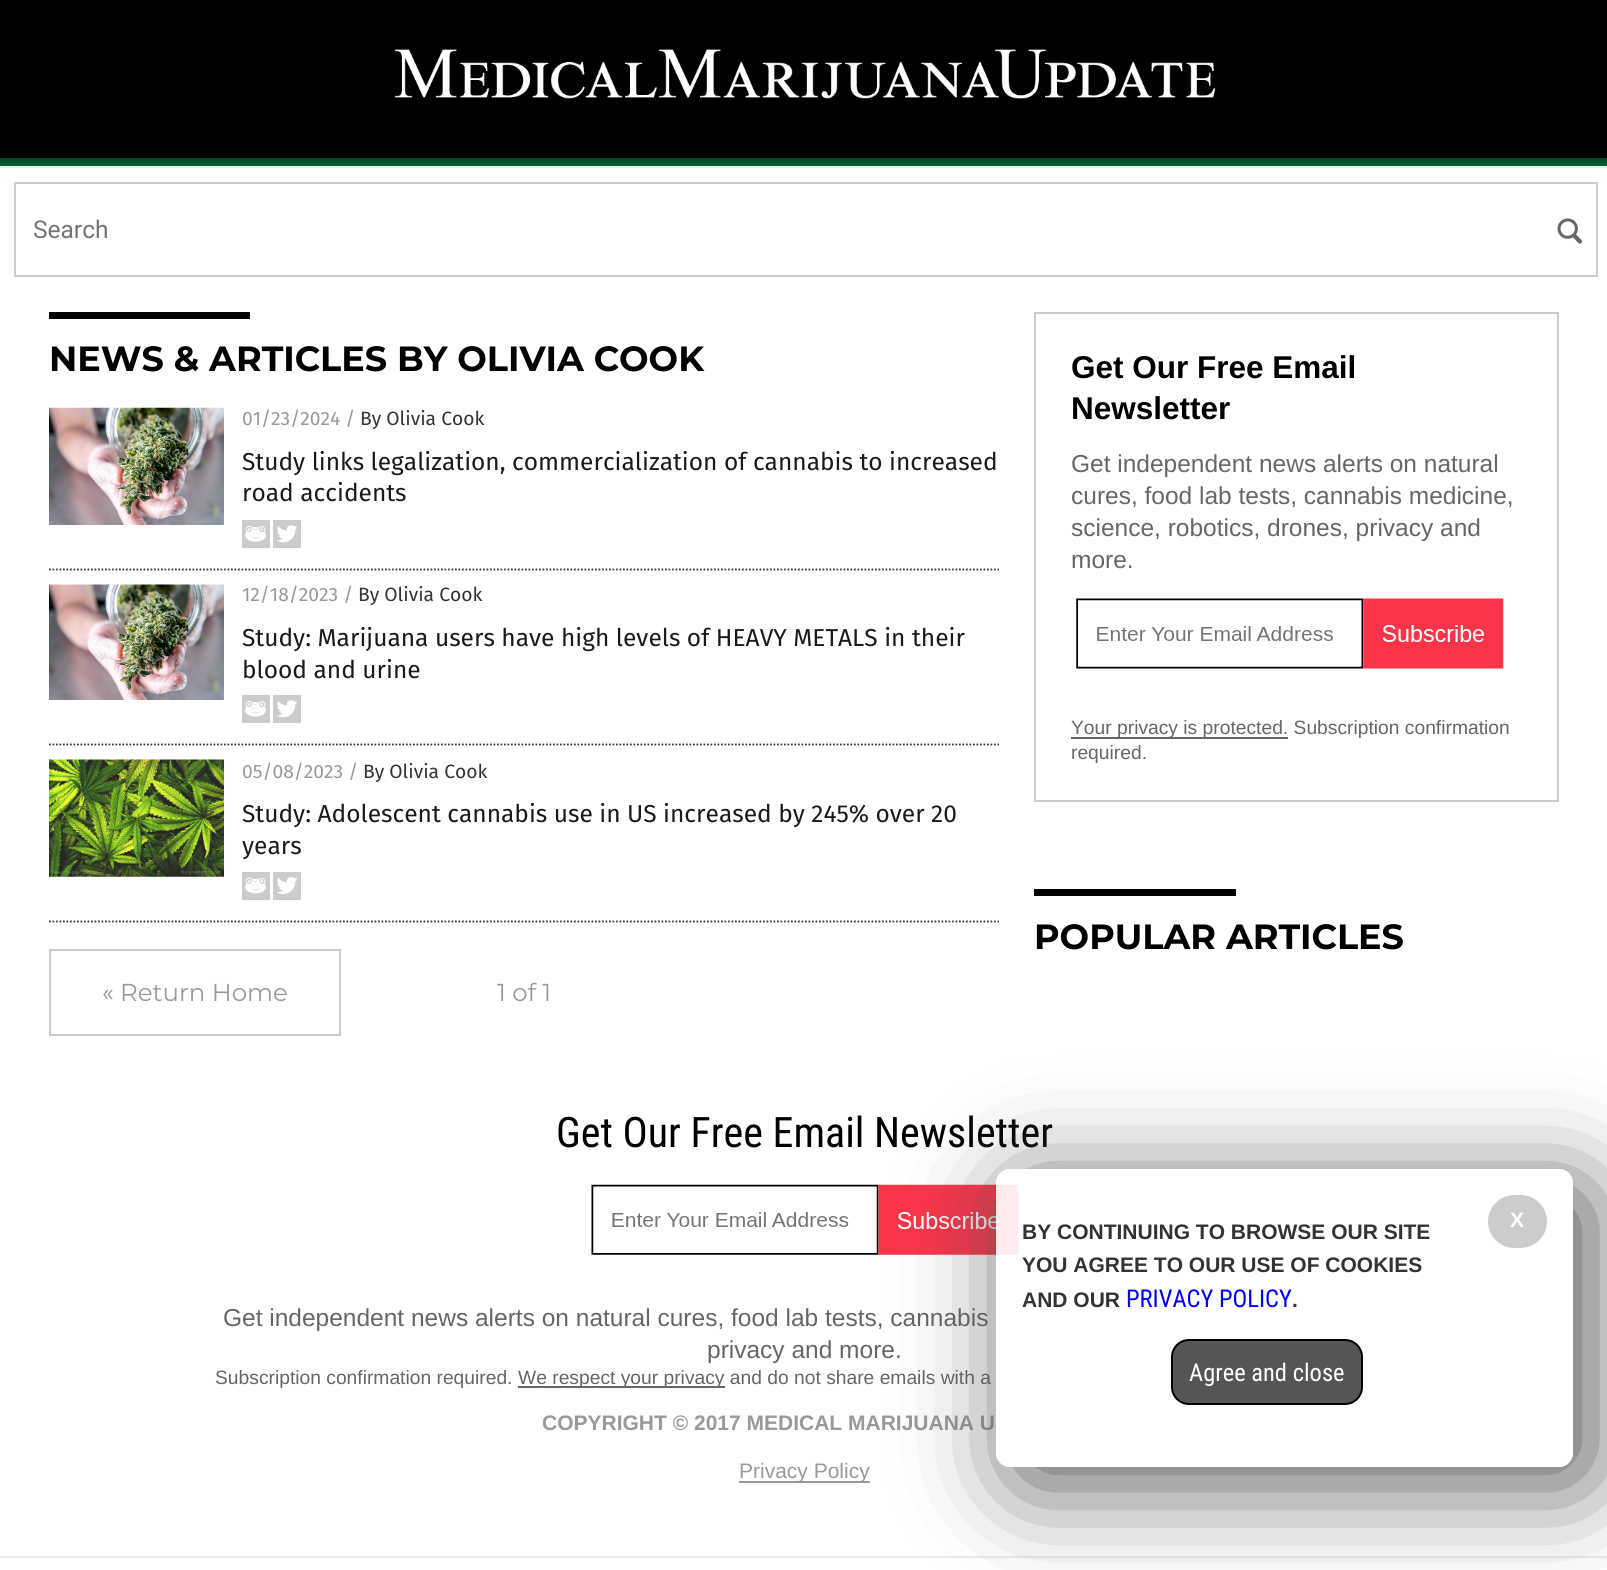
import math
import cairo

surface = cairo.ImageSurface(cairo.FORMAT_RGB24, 1607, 1570)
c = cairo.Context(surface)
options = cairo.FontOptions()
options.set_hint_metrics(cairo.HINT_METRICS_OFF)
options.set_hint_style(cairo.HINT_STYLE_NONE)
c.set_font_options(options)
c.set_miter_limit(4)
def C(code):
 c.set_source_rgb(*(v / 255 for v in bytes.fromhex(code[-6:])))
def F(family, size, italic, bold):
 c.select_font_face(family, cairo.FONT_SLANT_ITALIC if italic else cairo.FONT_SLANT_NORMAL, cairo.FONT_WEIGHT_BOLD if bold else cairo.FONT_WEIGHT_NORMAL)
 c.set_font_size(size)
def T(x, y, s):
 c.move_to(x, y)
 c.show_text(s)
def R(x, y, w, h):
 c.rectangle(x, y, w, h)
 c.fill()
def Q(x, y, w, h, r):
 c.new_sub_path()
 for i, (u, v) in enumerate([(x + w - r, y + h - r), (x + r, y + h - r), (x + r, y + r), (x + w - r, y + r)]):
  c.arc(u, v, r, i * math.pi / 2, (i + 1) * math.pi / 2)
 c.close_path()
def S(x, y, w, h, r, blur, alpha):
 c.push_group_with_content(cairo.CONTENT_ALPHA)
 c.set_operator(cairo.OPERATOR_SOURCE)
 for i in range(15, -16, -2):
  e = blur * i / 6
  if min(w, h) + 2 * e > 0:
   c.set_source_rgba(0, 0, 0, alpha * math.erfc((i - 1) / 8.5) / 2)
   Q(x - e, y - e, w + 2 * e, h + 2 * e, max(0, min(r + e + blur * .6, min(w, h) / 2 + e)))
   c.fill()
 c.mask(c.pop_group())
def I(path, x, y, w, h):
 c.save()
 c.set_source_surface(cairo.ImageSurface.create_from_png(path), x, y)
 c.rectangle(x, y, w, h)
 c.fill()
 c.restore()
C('ffffff')
c.paint()
C('008143')
R(0,158,1607,8)
C('000000')
S(-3,-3,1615,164,0,9,.75)
C('000000')
R(0,0,1607,158)
I('1.png',394,49,822,50)
C('ffffff')
R(0,168,1607,13)
C('ececec')
R(0,166,1607,2)
R(0,1556,1607,2)
c.rectangle(15,183,1582,93)
C('cccccc')
c.stroke()
F('Roboto',24.5,0,0)
C('757575')
T(33,238,'Search')
I('2.png',1557,218,25,26)
C('000000')
R(49,312,201,7)
F('Montserrat',35,0,1)
T(49,371,'NEWS & ARTICLES BY OLIVIA COOK')
c.new_path()
c.move_to(49,569.5)
c.line_to(999,569.5)
C('343434')
c.set_line_width(1.8)
c.set_dash([1.75,1.75])
c.stroke()
I('3.png',49,407,175,118)
F('Fira Sans',19.25,0,0)
C('999999')
T(242,425,'01/23/2024 /')
C('333333')
T(360,425,'By Olivia Cook')
F('Fira Sans',24.5,0,0)
C('1a1a1a')
T(242,470,'Study links legalization, commercialization of cannabis to increased')
T(242,501,'road accidents')
I('4.png',242,520,28,28)
I('5.png',273,520,28,28)
c.new_path()
c.move_to(49,744.5)
c.line_to(999,744.5)
C('343434')
c.stroke()
I('6.png',49,584,175,116)
F('Fira Sans',19.25,0,0)
C('999999')
T(242,601,'12/18/2023 /')
C('333333')
T(358,601,'By Olivia Cook')
F('Fira Sans',24.5,0,0)
C('1a1a1a')
T(242,646,'Study: Marijuana users have high levels of HEAVY METALS in their')
T(242,678,'blood and urine')
I('4.png',242,695,28,28)
I('5.png',273,695,28,28)
c.new_path()
c.move_to(49,921.5)
c.line_to(999,921.5)
C('343434')
c.stroke()
I('7.png',49,759,175,118)
F('Fira Sans',19.25,0,0)
C('999999')
T(242,778,'05/08/2023 /')
C('333333')
T(363,778,'By Olivia Cook')
F('Fira Sans',24.5,0,0)
C('1a1a1a')
T(242,822,'Study: Adolescent cannabis use in US increased by 245% over 20')
T(242,854,'years')
I('8.png',242,872,28,28)
I('9.png',273,872,28,28)
c.rectangle(50,950,290,85)
C('cccccc')
c.set_line_width(2)
c.set_dash([])
c.stroke()
F('Montserrat',24.5,0,0)
C('999999')
T(102,1001,'« Return Home')
T(497,1001,'1 of 1')
c.rectangle(1035,313,523,488)
C('cccccc')
c.stroke()
F('Liberation Sans',31.5,0,1)
C('000000')
T(1071,378,'Get Our Free Email')
T(1071,419,'Newsletter')
F('Liberation Sans',24.5,0,0)
C('666666')
T(1071,472,'Get independent news alerts on natural')
T(1071,504,'cures, food lab tests, cannabis medicine,')
T(1071,536,'science, robotics, drones, privacy and')
T(1071,568,'more.')
I('10.png',1076,598,428,71)
R(1071,737,217,2)
F('Liberation Sans',19.25,0,0)
T(1071,734,'Your privacy is protected. Subscription confirmation')
T(1071,759,'required.')
C('000000')
R(1034,889,202,7)
F('Montserrat',35,0,1)
T(1034,949,'POPULAR ARTICLES')
F('Roboto Condensed',42,0,0)
T(556,1147,'Get Our Free Email Newsletter')
I('11.png',591,1184,428,71)
F('Liberation Sans',24.5,0,0)
C('666666')
T(223,1326,'Get independent news alerts on natural cures, food lab tests, cannabis')
T(707,1358,'privacy and more.')
F('Liberation Sans',19.25,0,0)
T(215,1384,'Subscription confirmation required.')
R(518,1386,207,2)
T(518,1384,'We respect your privacy and do not share emails with a')
F('Liberation Sans',21,0,1)
C('999999')
T(542,1430,'COPYRIGHT © 2017 MEDICAL MARIJUANA U')
R(739,1481,131,2)
F('Liberation Sans',21,0,0)
T(739,1478,'Privacy Policy')
c.save()
c.set_fill_rule(cairo.FILL_RULE_EVEN_ODD)
c.new_path()
c.move_to(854,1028)
c.line_to(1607,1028)
c.line_to(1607,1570)
c.line_to(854,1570)
c.close_path()
c.move_to(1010,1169)
c.line_to(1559,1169)
c.curve_to(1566.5,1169,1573,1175.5,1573,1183)
c.line_to(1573,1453)
c.curve_to(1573,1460.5,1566.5,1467,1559,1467)
c.line_to(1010,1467)
c.curve_to(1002.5,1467,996,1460.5,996,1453)
c.line_to(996,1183)
c.curve_to(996,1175.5,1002.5,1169,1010,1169)
c.close_path()
c.clip()
C('555555')
S(1013,1187,578,297,14,52.5,1)
c.restore()
c.set_source_rgba(1,1,1,0.9)
Q(996,1169,577,298,14)
c.fill()
C('cccccc')
Q(1488,1195,59,53,26.5)
c.fill()
F('Liberation Sans',21,0,1)
C('ffffff')
T(1510,1227,'X')
C('333333')
T(1022,1239,'BY CONTINUING TO BROWSE OUR SITE')
T(1022,1272,'YOU AGREE TO OUR USE OF COOKIES')
T(1022,1307,'AND OUR')
F('Roboto Condensed',24.5,0,0)
C('0000ff')
T(1126,1307,'PRIVACY POLICY')
F('Liberation Sans',21,0,1)
C('333333')
T(1292,1307,'.')
C('555555')
Q(1172,1340,190,64,17)
c.fill_preserve()
C('000000')
c.stroke()
F('Roboto Condensed',24.5,0,0)
C('ffffff')
T(1189,1381,'Agree and close')
surface.write_to_png('o.png')
